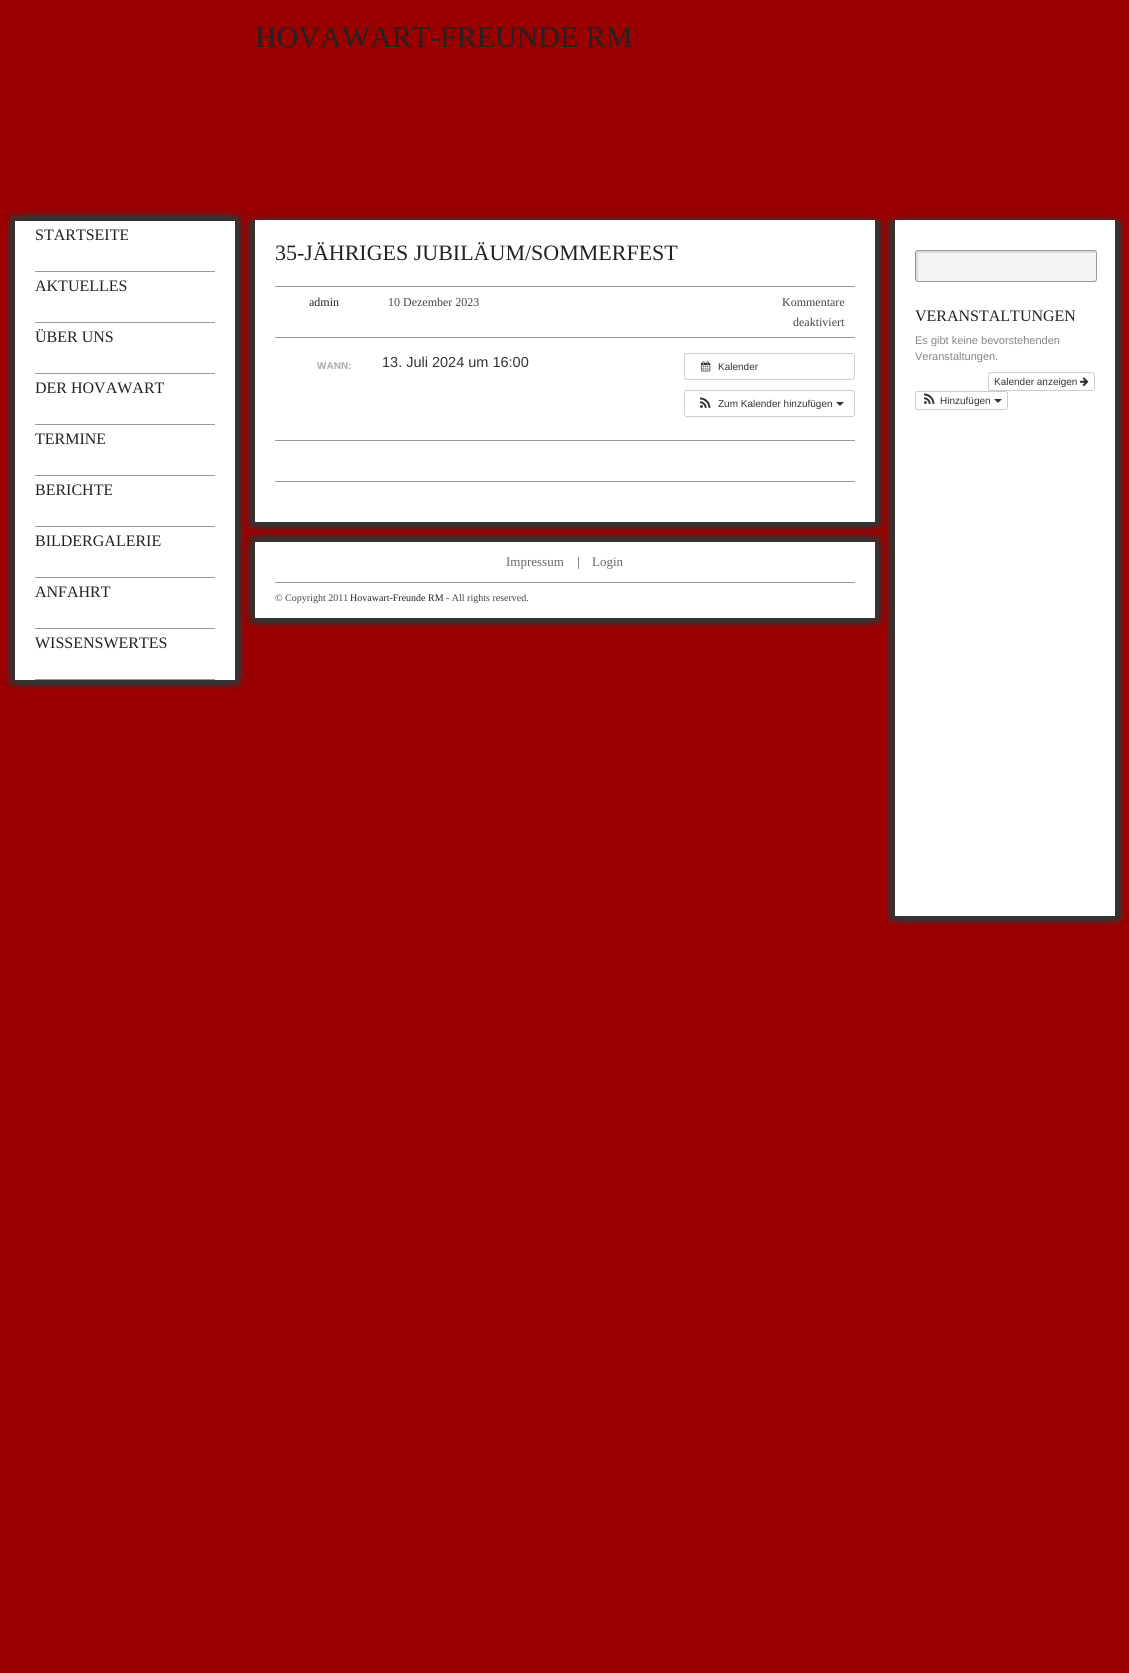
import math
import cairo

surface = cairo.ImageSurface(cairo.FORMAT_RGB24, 1129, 1673)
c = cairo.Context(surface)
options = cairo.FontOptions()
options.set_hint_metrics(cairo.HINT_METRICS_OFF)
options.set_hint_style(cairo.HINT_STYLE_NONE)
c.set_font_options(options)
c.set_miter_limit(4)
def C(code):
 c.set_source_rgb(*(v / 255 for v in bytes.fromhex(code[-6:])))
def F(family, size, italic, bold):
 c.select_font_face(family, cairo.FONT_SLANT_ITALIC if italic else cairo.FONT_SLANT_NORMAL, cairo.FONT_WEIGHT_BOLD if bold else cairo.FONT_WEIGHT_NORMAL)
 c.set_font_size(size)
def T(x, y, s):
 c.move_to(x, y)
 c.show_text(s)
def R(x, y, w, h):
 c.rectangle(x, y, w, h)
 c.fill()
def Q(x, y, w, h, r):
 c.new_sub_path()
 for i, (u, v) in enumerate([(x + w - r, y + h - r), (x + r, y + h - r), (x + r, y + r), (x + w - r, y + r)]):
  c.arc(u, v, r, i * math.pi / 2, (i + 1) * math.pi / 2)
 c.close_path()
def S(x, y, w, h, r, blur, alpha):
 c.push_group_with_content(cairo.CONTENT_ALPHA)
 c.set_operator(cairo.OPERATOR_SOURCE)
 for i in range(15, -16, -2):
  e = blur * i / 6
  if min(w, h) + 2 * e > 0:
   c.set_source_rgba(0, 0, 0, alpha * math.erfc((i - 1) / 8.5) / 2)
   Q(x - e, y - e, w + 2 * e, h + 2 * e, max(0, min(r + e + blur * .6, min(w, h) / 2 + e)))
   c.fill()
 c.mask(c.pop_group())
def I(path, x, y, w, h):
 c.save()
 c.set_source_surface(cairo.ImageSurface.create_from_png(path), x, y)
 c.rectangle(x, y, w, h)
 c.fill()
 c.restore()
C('9a0000')
c.paint()
C('333333')
S(10,216,220,459,0,2.5,1)
S(20,216,220,459,0,2.5,1)
S(10,226,220,459,0,2.5,1)
S(20,226,220,459,0,2.5,1)
C('ffffff')
R(15,221,220,459)
C('999999')
R(35,271,180,1)
F('Liberation Serif',16,0,0)
C('222222')
T(35,240,'STARTSEITE')
C('999999')
R(35,322,180,1)
C('222222')
T(35,291,'AKTUELLES')
C('999999')
R(35,373,180,1)
C('222222')
T(35,342,'ÜBER UNS')
C('999999')
R(35,424,180,1)
C('222222')
T(35,393,'DER HOVAWART')
C('999999')
R(35,475,180,1)
C('222222')
T(35,444,'TERMINE')
C('999999')
R(35,526,180,1)
C('222222')
T(35,495,'BERICHTE')
C('999999')
R(35,577,180,1)
C('222222')
T(35,546,'BILDERGALERIE')
C('999999')
R(35,628,180,1)
C('222222')
T(35,597,'ANFAHRT')
C('999999')
R(35,679,180,1)
C('222222')
T(35,648,'WISSENSWERTES')
F('Liberation Serif',30,0,0)
T(255,47,'HOVAWART-FREUNDE RM')
C('333333')
S(250,220,620,302,0,2.5,1)
S(260,220,620,302,0,2.5,1)
S(250,225,620,302,0,2.5,1)
S(260,225,620,302,0,2.5,1)
C('ffffff')
R(255,220,620,302)
F('Liberation Serif',22,0,0)
C('222222')
T(275,260,'35-JÄHRIGES JUBILÄUM/SOMMERFEST')
C('999999')
R(275,286,580,1)
R(275,337,580,1)
F('Liberation Serif',12,0,0)
C('222222')
T(309,306,'admin')
C('444444')
T(388,306,'10 Dezember 2023')
T(782,306,'Kommentare')
T(793,326,'deaktiviert')
F('Liberation Sans',10,0,1)
C('aaaaaa')
T(317,369,'WANN:')
F('Liberation Sans',14.5,0,0)
C('333333')
T(382,367,'13. Juli 2024 um 16:00')
Q(684.5,353.5,170,26,2.5)
C('cccccc')
c.set_line_width(1)
c.stroke()
I('1.png',701,361,10,11)
F('Liberation Sans',10,0,0)
C('333333')
T(718,370,'Kalender')
Q(684.5,390.5,170,26,2.5)
C('cccccc')
c.stroke()
I('2.png',700,397,11,11)
C('333333')
T(718,407,'Zum Kalender hinzufügen')
c.new_path()
c.move_to(836,402)
c.line_to(844,402)
c.line_to(840,406)
c.close_path()
c.fill()
C('999999')
R(275,440,580,1)
R(275,481,580,1)
C('333333')
S(890,220,220,696,0,2.5,1)
S(900,220,220,696,0,2.5,1)
S(890,225,220,696,0,2.5,1)
S(900,225,220,696,0,2.5,1)
C('ffffff')
R(895,220,220,696)
C('f4f4f4')
Q(915,250,182,32,3)
c.fill()
C('dcdcdc')
c.new_path()
c.move_to(919,253)
c.line_to(1095,253)
c.curve_to(1096,253,1096,253,1096,254)
c.curve_to(1096,253,1096,251,1094,251)
c.line_to(918,251)
c.line_to(916,252)
c.line_to(916,253)
c.line_to(916,275)
c.curve_to(916,278,915,281,919,281)
c.line_to(918,281)
c.line_to(918,258)
c.curve_to(918,257,917,253,919,253)
c.close_path()
c.fill()
Q(915.5,250.5,181,31,2.5)
C('999999')
c.stroke()
F('Liberation Serif',16,0,0)
C('222222')
T(915,321,'VERANSTALTUNGEN')
F('Liberation Sans',11,0,0)
C('858585')
T(915,344,'Es gibt keine bevorstehenden')
T(915,360,'Veranstaltungen.')
Q(988.5,372.5,106,18,2.5)
C('cccccc')
c.stroke()
F('Liberation Sans',10,0,0)
C('333333')
T(994,385,'Kalender anzeigen')
I('3.png',1080,377,9,10)
Q(915.5,391.5,92,18,2.5)
C('cccccc')
c.stroke()
I('2.png',924,393,11,11)
C('333333')
T(940,404,'Hinzufügen')
c.new_path()
c.move_to(994,399)
c.line_to(1002,399)
c.line_to(998,403)
c.close_path()
c.fill()
C('333333')
S(250,537,620,76,0,2.5,1)
S(260,537,620,76,0,2.5,1)
S(250,547,620,76,0,2.5,1)
S(260,547,620,76,0,2.5,1)
C('ffffff')
R(255,542,620,76)
F('Liberation Serif',13,0,0)
C('666666')
T(506,566,'Impressum')
C('444444')
T(577,566,'|')
C('666666')
T(592,566,'Login')
C('999999')
R(275,582,580,1)
F('Liberation Serif',10,0,0)
C('444444')
T(275,601,'© Copyright 2011')
C('222222')
T(350,601,'Hovawart-Freunde RM')
C('444444')
T(446,601,'- All rights reserved.')
surface.write_to_png('o.png')
